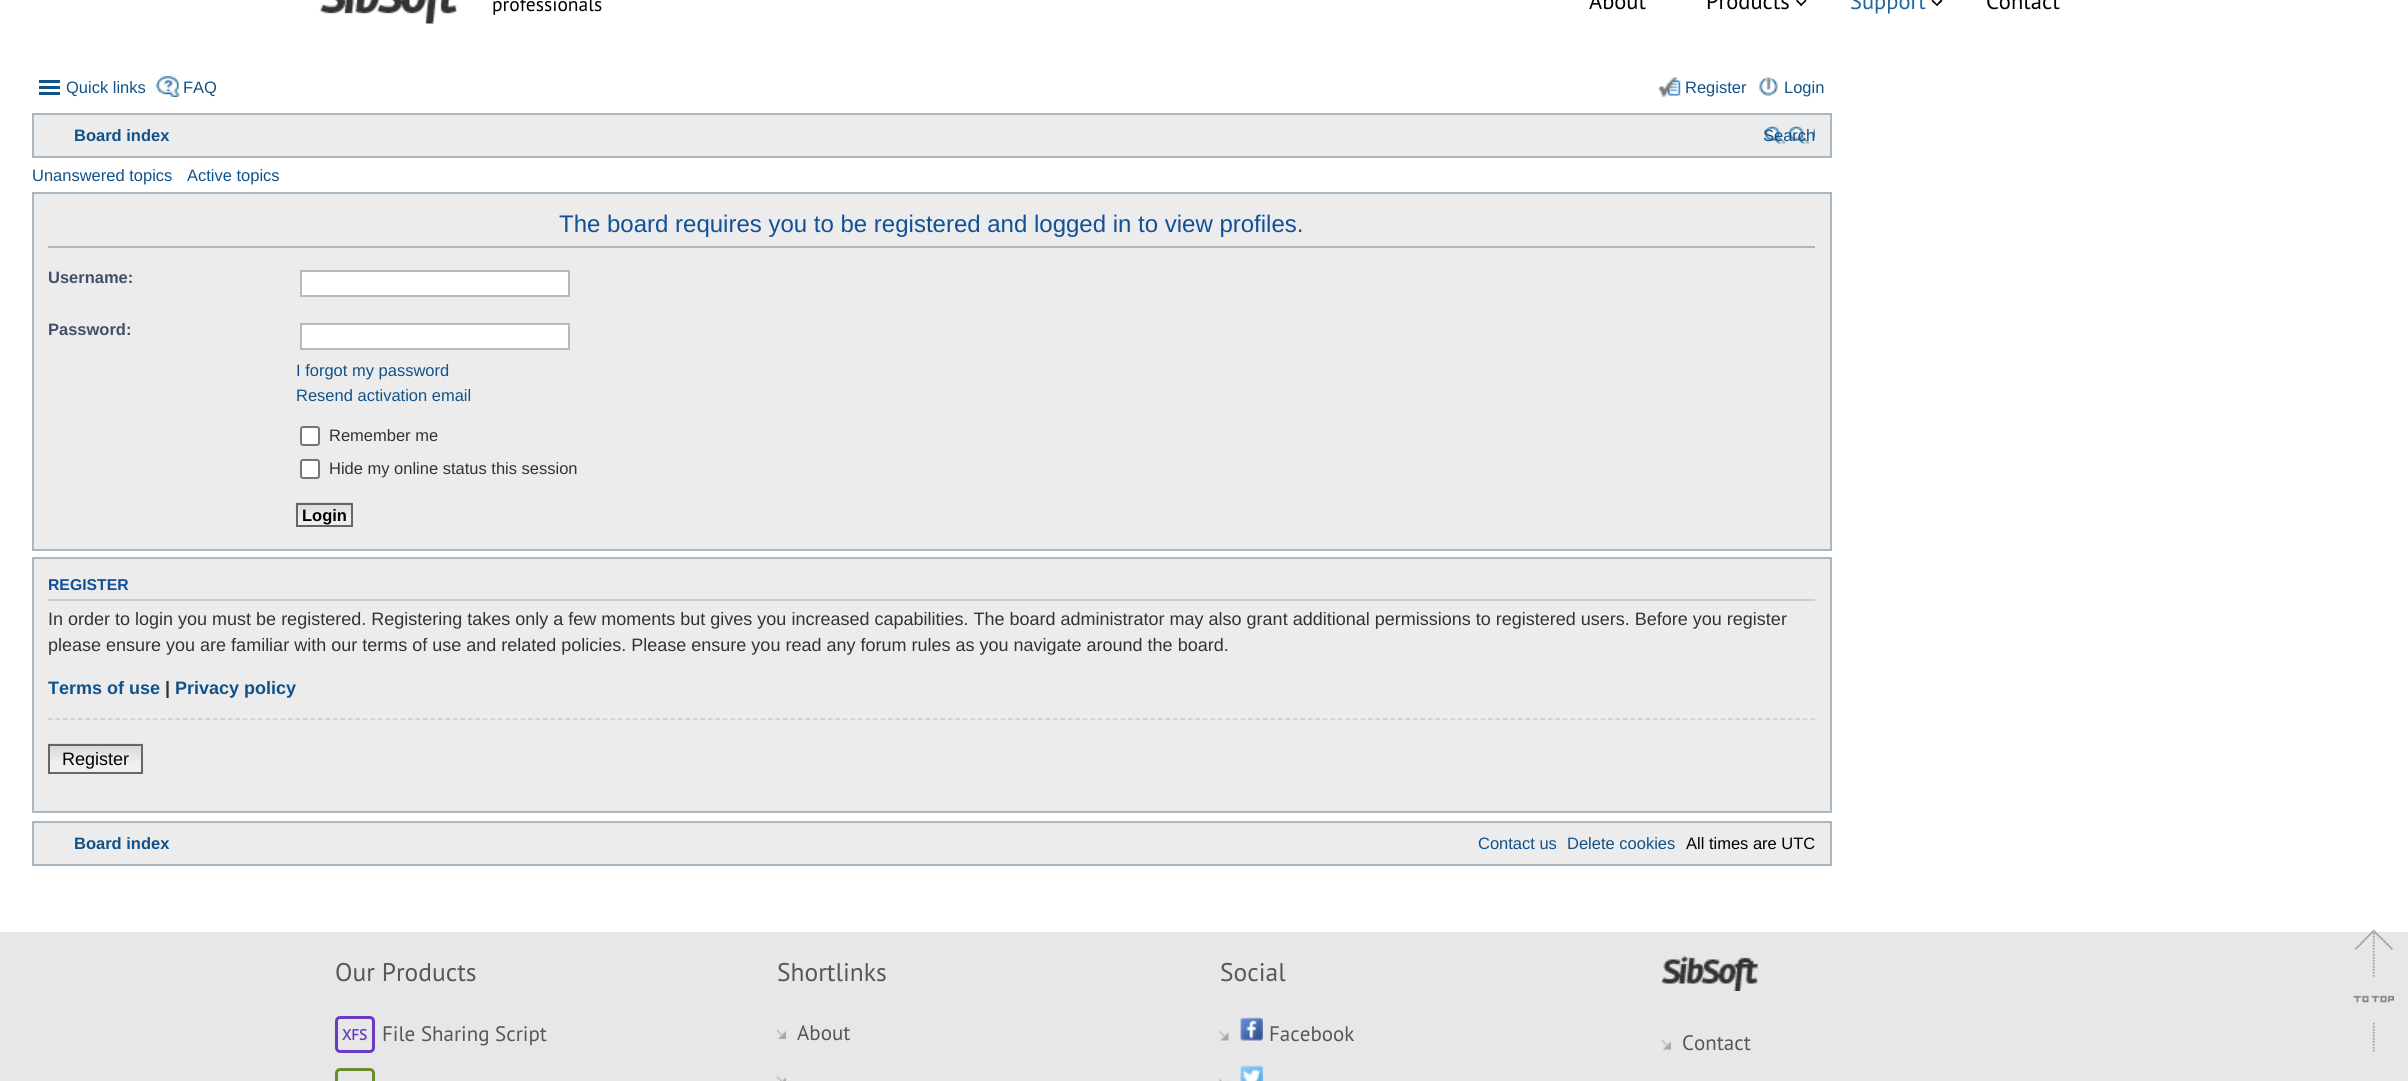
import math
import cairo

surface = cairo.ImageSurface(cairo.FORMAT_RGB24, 2408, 1081)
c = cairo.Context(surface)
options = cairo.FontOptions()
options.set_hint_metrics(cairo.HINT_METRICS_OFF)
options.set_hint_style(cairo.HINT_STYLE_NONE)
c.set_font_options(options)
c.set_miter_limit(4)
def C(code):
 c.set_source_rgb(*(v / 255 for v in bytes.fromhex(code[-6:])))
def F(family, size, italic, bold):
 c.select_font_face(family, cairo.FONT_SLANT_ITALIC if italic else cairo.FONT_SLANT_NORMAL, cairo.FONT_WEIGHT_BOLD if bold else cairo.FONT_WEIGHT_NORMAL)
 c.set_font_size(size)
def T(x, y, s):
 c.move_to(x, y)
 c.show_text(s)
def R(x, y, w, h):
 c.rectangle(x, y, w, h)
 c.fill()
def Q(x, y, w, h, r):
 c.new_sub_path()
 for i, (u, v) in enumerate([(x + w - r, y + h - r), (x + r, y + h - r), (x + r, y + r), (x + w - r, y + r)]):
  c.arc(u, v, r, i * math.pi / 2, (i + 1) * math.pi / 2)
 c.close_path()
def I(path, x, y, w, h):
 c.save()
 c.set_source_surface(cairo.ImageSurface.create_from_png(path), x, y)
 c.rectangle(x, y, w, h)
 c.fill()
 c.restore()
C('ffffff')
c.paint()
I('1.png',319,0,139,24)
F('PT Sans',19.5,0,0)
C('000000')
T(492,11,'professionals')
F('PT Sans',22.5,0,0)
T(1589,9,'About')
T(1706,9,'Products')
c.new_path()
c.move_to(1805.5,-.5)
c.line_to(1806.5,1)
c.line_to(1801,6)
c.line_to(1800,5)
c.close_path()
c.fill()
c.new_path()
c.move_to(1797,-.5)
c.line_to(1802.5,5)
c.line_to(1801,6)
c.line_to(1796,1)
c.close_path()
c.fill()
C('20659c')
T(1850,9,'Support')
C('000000')
c.new_path()
c.move_to(1941,-.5)
c.line_to(1942.5,1)
c.line_to(1937,6)
c.line_to(1936,5)
c.close_path()
c.fill()
c.new_path()
c.move_to(1932.5,-.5)
c.line_to(1938,5)
c.line_to(1937,6)
c.line_to(1931.5,1)
c.close_path()
c.fill()
T(1986,9,'Contact')
C('105289')
R(39,80,21,3)
R(39,86,21,3)
R(39,92,21,3)
F('Liberation Sans',16.5,0,0)
T(66,93,'Quick links')
I('2.png',156,76,24,21)
T(183,93,'FAQ')
I('3.png',1658,77,23,20)
T(1685,93,'Register')
I('4.png',1759,77,19,19)
T(1784,93,'Login')
C('ececec')
c.rectangle(33,114,1798,43)
c.fill_preserve()
C('a9b8c2')
c.stroke()
F('Liberation Sans',16.5,0,1)
C('105289')
T(74,141,'Board index')
I('5.png',1763,126,52,18)
F('Liberation Sans',16.5,0,0)
T(1763,141,'Search')
T(32,181,'Unanswered topics')
T(187,181,'Active topics')
C('ececec')
c.rectangle(33,193,1798,357)
c.fill_preserve()
C('a9b8c2')
c.stroke()
R(48,246,1767,2)
F('Liberation Sans',24,0,0)
C('115098')
T(559,232,'The board requires you to be registered and logged in to view profiles.')
F('Liberation Sans',16.5,0,1)
C('425067')
T(48,283,'Username:')
C('ffffff')
c.rectangle(301,271,268,25)
c.fill_preserve()
C('b4bac0')
c.stroke()
C('425067')
T(48,335,'Password:')
C('ffffff')
c.rectangle(301,324,268,25)
c.fill_preserve()
C('b4bac0')
c.stroke()
F('Liberation Sans',16.5,0,0)
C('105289')
T(296,376,'I forgot my password')
T(296,401,'Resend activation email')
C('ffffff')
Q(301,427,18,18,2)
c.fill_preserve()
C('767676')
c.stroke()
C('333333')
T(329,441,'Remember me')
C('ffffff')
Q(301,460,18,18,2)
c.fill_preserve()
C('767676')
c.stroke()
C('333333')
T(329,474,'Hide my online status this session')
I('6.png',295,502,58,24)
c.rectangle(297,504,55,22)
C('666666')
c.stroke()
F('Liberation Sans',16.5,0,1)
C('000000')
T(302,521,'Login')
C('ececec')
c.rectangle(33,558,1798,254)
c.fill_preserve()
C('a9b8c2')
c.stroke()
C('cccccc')
R(48,599,1767,2)
F('Liberation Sans',15.75,0,1)
C('115098')
T(48,590,'REGISTER')
F('Liberation Sans',18,0,0)
C('333333')
T(48,625,'In order to login you must be registered. Registering takes only a few moments but gives you increased capabilities. The board administrator may also grant additional permissions to registered users. Before you register')
T(48,651,'please ensure you are familiar with our terms of use and related policies. Please ensure you read any forum rules as you navigate around the board.')
F('Liberation Sans',18,0,1)
C('105289')
T(48,694,'Terms of use')
C('333333')
T(165,694,'|')
C('105289')
T(175,694,'Privacy policy')
c.new_path()
c.move_to(48,719)
c.line_to(1815,719)
C('cccccc')
c.set_line_width(1.5)
c.set_dash([4.5,3])
c.stroke()
I('7.png',48,743,95,29)
c.rectangle(49,745,93,28)
C('666666')
c.set_line_width(2)
c.set_dash([])
c.stroke()
F('Liberation Sans',18,0,0)
C('000000')
T(62,765,'Register')
C('ececec')
c.rectangle(33,822,1798,43)
c.fill_preserve()
C('a9b8c2')
c.stroke()
F('Liberation Sans',16.5,0,1)
C('105289')
T(74,849,'Board index')
F('Liberation Sans',16.5,0,0)
T(1478,849,'Contact us')
T(1567,849,'Delete cookies')
C('000000')
T(1686,849,'All times are UTC')
C('e7e7e7')
R(0,932,2408,149)
F('PT Sans',25.5,0,0)
C('575757')
T(335,981,'Our Products')
Q(336.5,1017.5,37,34,3.5)
C('6a3bc0')
c.set_line_width(3)
c.stroke()
F('PT Sans',15,0,1)
T(342,1040,'XFS')
F('PT Sans',21,0,0)
C('575757')
T(382,1041,'File Sharing Script')
Q(336.5,1069.5,37,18,3.5)
C('6a8d2d')
c.stroke()
F('PT Sans',25.5,0,0)
C('575757')
T(777,981,'Shortlinks')
I('8.png',777,1030,9,9)
F('PT Sans',21,0,0)
T(797,1040,'About')
I('9.png',777,1076,9,5)
F('PT Sans',25.5,0,0)
T(1220,981,'Social')
I('10.png',1219,1031,10,10)
I('11.png',1240,1017,23,24)
F('PT Sans',21,0,0)
T(1269,1041,'Facebook')
I('12.png',1219,1079,9,2)
I('13.png',1240,1065,23,16)
I('14.png',1662,956,96,35)
I('15.png',2353,930,41,122)
I('16.png',1662,1040,9,10)
T(1682,1050,'Contact')
surface.write_to_png('o.png')
